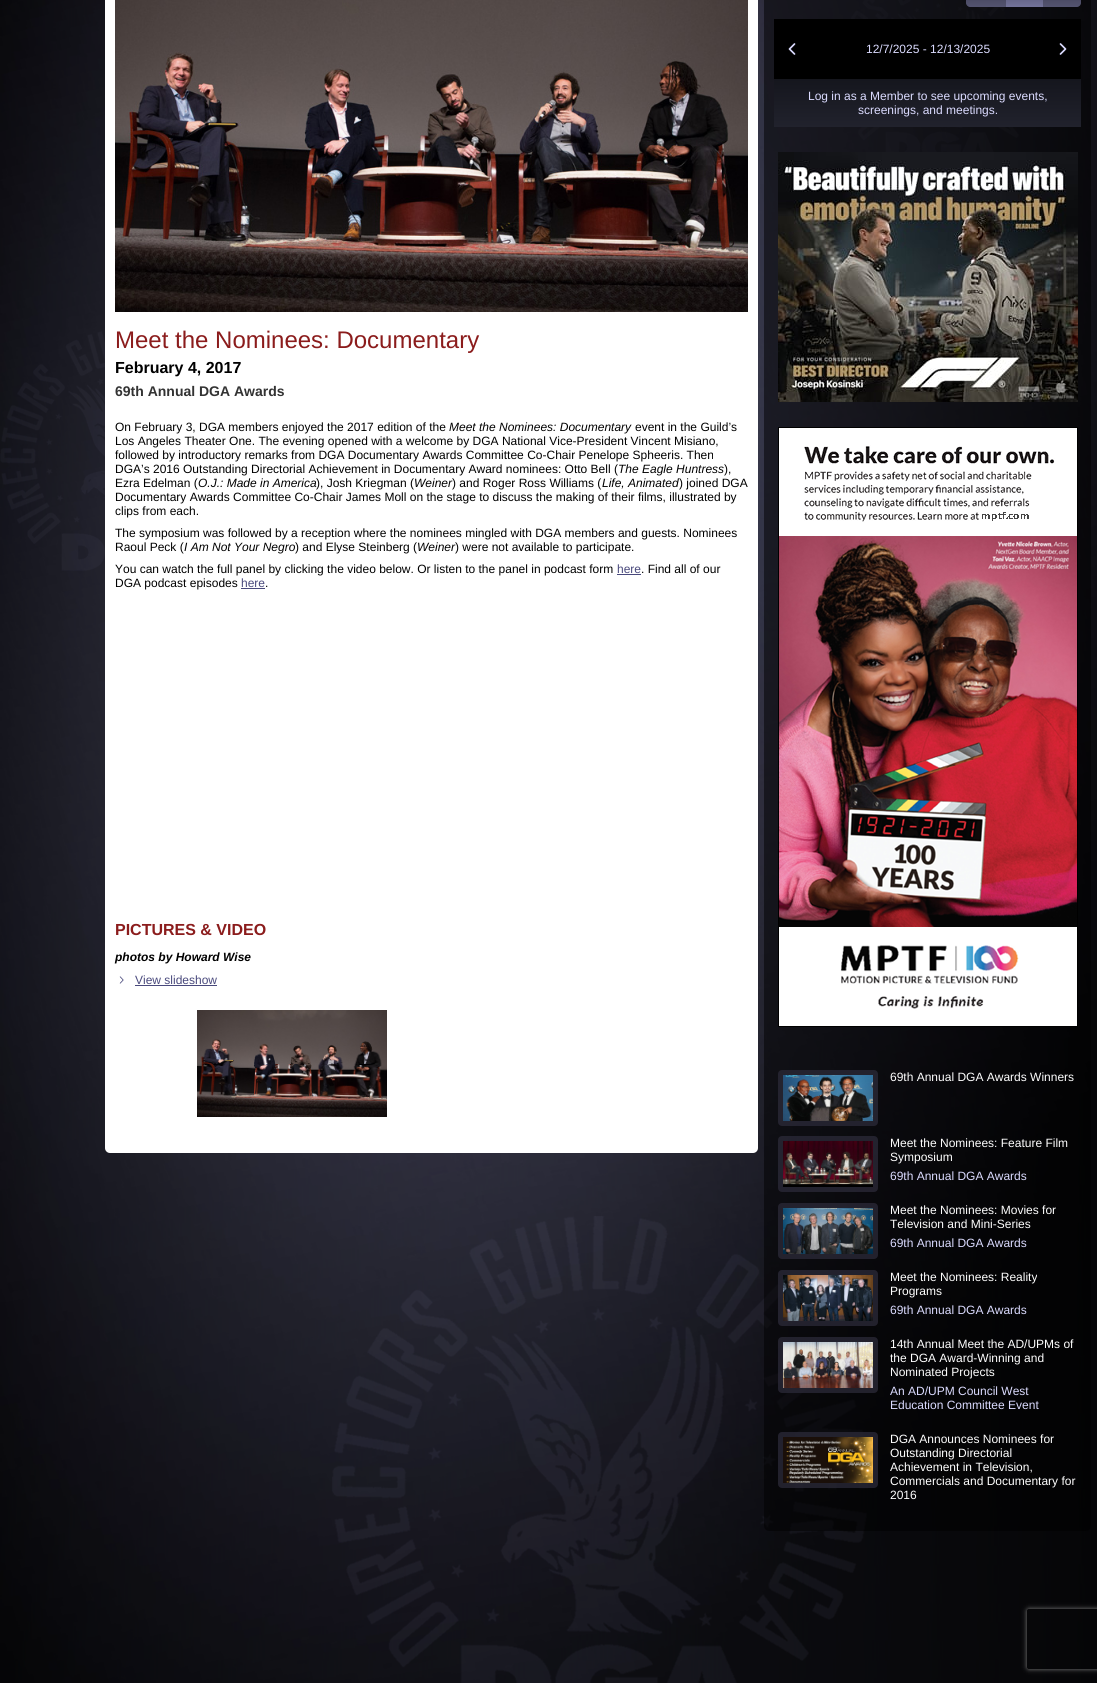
import math
import cairo

surface = cairo.ImageSurface(cairo.FORMAT_RGB24, 1097, 1683)
c = cairo.Context(surface)
options = cairo.FontOptions()
options.set_hint_metrics(cairo.HINT_METRICS_OFF)
options.set_hint_style(cairo.HINT_STYLE_NONE)
c.set_font_options(options)
c.set_miter_limit(4)
def C(code):
 c.set_source_rgb(*(v / 255 for v in bytes.fromhex(code[-6:])))
def F(family, size, italic, bold):
 c.select_font_face(family, cairo.FONT_SLANT_ITALIC if italic else cairo.FONT_SLANT_NORMAL, cairo.FONT_WEIGHT_BOLD if bold else cairo.FONT_WEIGHT_NORMAL)
 c.set_font_size(size)
def T(x, y, s):
 c.move_to(x, y)
 c.show_text(s)
def R(x, y, w, h):
 c.rectangle(x, y, w, h)
 c.fill()
def Q(x, y, w, h, r):
 c.new_sub_path()
 for i, (u, v) in enumerate([(x + w - r, y + h - r), (x + r, y + h - r), (x + r, y + r), (x + w - r, y + r)]):
  c.arc(u, v, r, i * math.pi / 2, (i + 1) * math.pi / 2)
 c.close_path()
def S(x, y, w, h, r, blur, alpha):
 c.push_group_with_content(cairo.CONTENT_ALPHA)
 c.set_operator(cairo.OPERATOR_SOURCE)
 for i in range(15, -16, -2):
  e = blur * i / 6
  if min(w, h) + 2 * e > 0:
   c.set_source_rgba(0, 0, 0, alpha * math.erfc((i - 1) / 8.5) / 2)
   Q(x - e, y - e, w + 2 * e, h + 2 * e, max(0, min(r + e + blur * .6, min(w, h) / 2 + e)))
   c.fill()
 c.mask(c.pop_group())
def I(path, x, y, w, h):
 c.save()
 c.set_source_surface(cairo.ImageSurface.create_from_png(path), x, y)
 c.rectangle(x, y, w, h)
 c.fill()
 c.restore()
C('ffffff')
c.paint()
I('1.png',0,0,1097,1683)
I('2.png',851,0,168,152)
I('3.png',0,331,105,240)
C('ffffff')
Q(105,-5,653,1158,5)
c.fill()
I('4.png',115,0,633,312)
F('Liberation Sans',24,0,0)
C('8b1c1c')
T(115,348,'Meet the Nominees: Documentary')
F('Liberation Sans',16,0,1)
C('000000')
T(115,373,'February 4, 2017')
F('Liberation Sans',14,0,1)
C('333333')
T(115,396,'69th Annual DGA Awards')
F('Liberation Sans',12,0,0)
C('000000')
T(115,431,'On February 3, DGA members enjoyed the 2017 edition of the')
F('Liberation Sans',12,1,0)
T(449,431,'Meet the Nominees: Documentary')
F('Liberation Sans',12,0,0)
T(635,431,'event in the Guild’s')
T(115,445,'Los Angeles Theater One. The evening opened with a welcome by DGA National Vice-President Vincent Misiano,')
T(115,459,'followed by introductory remarks from DGA Documentary Awards Committee Co-Chair Penelope Spheeris. Then')
T(115,473,'DGA’s 2016 Outstanding Directorial Achievement in Documentary Award nominees: Otto Bell (')
F('Liberation Sans',12,1,0)
T(618,473,'The Eagle Huntress')
F('Liberation Sans',12,0,0)
T(724,473,'),')
T(115,487,'Ezra Edelman (')
F('Liberation Sans',12,1,0)
T(198,487,'O.J.: Made in America')
F('Liberation Sans',12,0,0)
T(316,487,'), Josh Kriegman (')
F('Liberation Sans',12,1,0)
T(414,487,'Weiner')
F('Liberation Sans',12,0,0)
T(452,487,') and Roger Ross Williams (')
F('Liberation Sans',12,1,0)
T(602,487,'Life, Animated')
F('Liberation Sans',12,0,0)
T(679,487,') joined DGA')
T(115,501,'Documentary Awards Committee Co-Chair James Moll on the stage to discuss the making of their films, illustrated by')
T(115,515,'clips from each.')
T(115,537,'The symposium was followed by a reception where the nominees mingled with DGA members and guests. Nominees')
T(115,551,'Raoul Peck (')
F('Liberation Sans',12,1,0)
T(184,551,'I Am Not Your Negro')
F('Liberation Sans',12,0,0)
T(295,551,') and Elyse Steinberg (')
F('Liberation Sans',12,1,0)
T(417,551,'Weiner')
F('Liberation Sans',12,0,0)
T(455,551,') were not available to participate.')
T(115,573,'You can watch the full panel by clicking the video below. Or listen to the panel in podcast form')
C('49497c')
T(617,573,'here')
R(617,574,24,1)
C('000000')
T(641,573,'. Find all of our')
T(115,587,'DGA podcast episodes')
C('49497c')
T(241,587,'here')
R(241,588,24,1)
C('000000')
T(265,587,'.')
F('Liberation Sans',16,0,1)
C('8b1c1c')
T(115,935,'PICTURES & VIDEO')
F('Liberation Sans',12,1,1)
C('000000')
T(115,961,'photos by Howard Wise')
I('5.png',119,976,5,8)
F('Liberation Sans',12,0,0)
C('49497c')
T(135,984,'View slideshow')
R(135,985,82,1)
I('6.png',197,1010,190,107)
I('15.png',332,1216,536,467)
c.set_source_rgba(0,0,0,0.5)
Q(764,-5,327,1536,5)
c.fill()
gradient = cairo.LinearGradient(986,7,986,-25)
gradient.add_color_stop_rgba(0,0.329,0.329,0.439,1)
gradient.add_color_stop_rgba(1,0.184,0.184,0.247,1)
c.set_source(gradient)
c.new_path()
c.move_to(970,-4)
c.line_to(1006,-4)
c.line_to(1006,7)
c.line_to(970,7)
c.curve_to(968,7,966,5,966,3)
c.line_to(966,0)
c.curve_to(966,-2,968,-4,970,-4)
c.close_path()
c.fill()
gradient = cairo.LinearGradient(1025,7,1025,-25)
gradient.add_color_stop_rgba(0,0.451,0.451,0.604,1)
gradient.add_color_stop_rgba(1,0.247,0.247,0.329,1)
c.set_source(gradient)
R(1006,0,37,7)
gradient = cairo.LinearGradient(1062,7,1062,-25)
gradient.add_color_stop_rgba(0,0.329,0.329,0.439,1)
gradient.add_color_stop_rgba(1,0.184,0.184,0.247,1)
c.set_source(gradient)
c.new_path()
c.move_to(1043,-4)
c.line_to(1077,-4)
c.curve_to(1079,-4,1081,-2,1081,0)
c.line_to(1081,3)
c.curve_to(1081,5,1079,7,1077,7)
c.line_to(1043,7)
c.close_path()
c.fill()
C('000000')
R(774,19,307,60)
c.new_path()
c.move_to(794.5,54)
c.line_to(789.5,49)
c.line_to(794.5,44)
C('dbdbff')
c.set_line_width(1.7)
c.set_line_cap(cairo.LINE_CAP_ROUND)
c.set_line_join(cairo.LINE_JOIN_ROUND)
c.stroke()
T(866,53,'12/7/2025 - 12/13/2025')
c.new_path()
c.move_to(1060.5,54)
c.line_to(1065.5,49)
c.line_to(1060.5,44)
c.stroke()
gradient = cairo.LinearGradient(928,127,928,79)
gradient.add_color_stop_rgba(0,0.129,0.133,0.176,1)
gradient.add_color_stop_rgba(1,0.082,0.086,0.114,1)
c.set_source(gradient)
R(774,79,307,48)
C('dbdbff')
T(808,100,'Log in as a Member to see upcoming events,')
T(858,114,'screenings, and meetings.')
I('7.png',778,152,300,250)
I('8.png',778,427,300,600)
Q(780.5,1072.5,95,51,1.5)
c.set_source_rgba(0.169,0.165,0.22,0.75)
c.set_line_width(5)
c.set_line_cap(cairo.LINE_CAP_BUTT)
c.set_line_join(cairo.LINE_JOIN_MITER)
c.stroke()
I('9.png',783,1075,90,46)
C('ffffff')
T(890,1081,'69th Annual DGA Awards Winners')
Q(780.5,1138.5,95,51,1.5)
c.set_source_rgba(0.169,0.165,0.22,0.75)
c.stroke()
I('10.png',783,1141,90,46)
C('ffffff')
T(890,1147,'Meet the Nominees: Feature Film')
T(890,1161,'Symposium')
C('dbdbff')
T(890,1180,'69th Annual DGA Awards')
Q(780.5,1205.5,95,51,1.5)
c.set_source_rgba(0.169,0.165,0.22,0.75)
c.stroke()
I('11.png',783,1208,90,46)
C('ffffff')
T(890,1214,'Meet the Nominees: Movies for')
T(890,1228,'Television and Mini-Series')
C('dbdbff')
T(890,1247,'69th Annual DGA Awards')
Q(780.5,1272.5,95,51,1.5)
c.set_source_rgba(0.169,0.165,0.22,0.75)
c.stroke()
I('12.png',783,1275,90,46)
C('ffffff')
T(890,1281,'Meet the Nominees: Reality')
T(890,1295,'Programs')
C('dbdbff')
T(890,1314,'69th Annual DGA Awards')
Q(780.5,1339.5,95,51,1.5)
c.set_source_rgba(0.169,0.165,0.22,0.75)
c.stroke()
I('13.png',783,1342,90,46)
C('ffffff')
T(890,1348,'14th Annual Meet the AD/UPMs of')
T(890,1362,'the DGA Award-Winning and')
T(890,1376,'Nominated Projects')
C('dbdbff')
T(890,1395,'An AD/UPM Council West')
T(890,1409,'Education Committee Event')
Q(780.5,1434.5,95,51,1.5)
c.set_source_rgba(0.169,0.165,0.22,0.75)
c.stroke()
I('14.png',783,1437,90,46)
C('ffffff')
T(890,1443,'DGA Announces Nominees for')
T(890,1457,'Outstanding Directorial')
T(890,1471,'Achievement in Television,')
T(890,1485,'Commercials and Documentary for')
T(890,1499,'2016')
c.save()
c.set_fill_rule(cairo.FILL_RULE_EVEN_ODD)
c.new_path()
c.move_to(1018,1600)
c.line_to(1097,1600)
c.line_to(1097,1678)
c.line_to(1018,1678)
c.close_path()
c.move_to(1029,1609)
c.line_to(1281,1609)
c.curve_to(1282,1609,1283,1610,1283,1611)
c.line_to(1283,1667)
c.curve_to(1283,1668,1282,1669,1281,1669)
c.line_to(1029,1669)
c.curve_to(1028,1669,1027,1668,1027,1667)
c.line_to(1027,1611)
c.curve_to(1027,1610,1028,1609,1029,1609)
c.close_path()
c.clip()
C('808080')
S(1027,1609,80,60,2,2.5,1)
c.restore()
surface.write_to_png('o.png')
